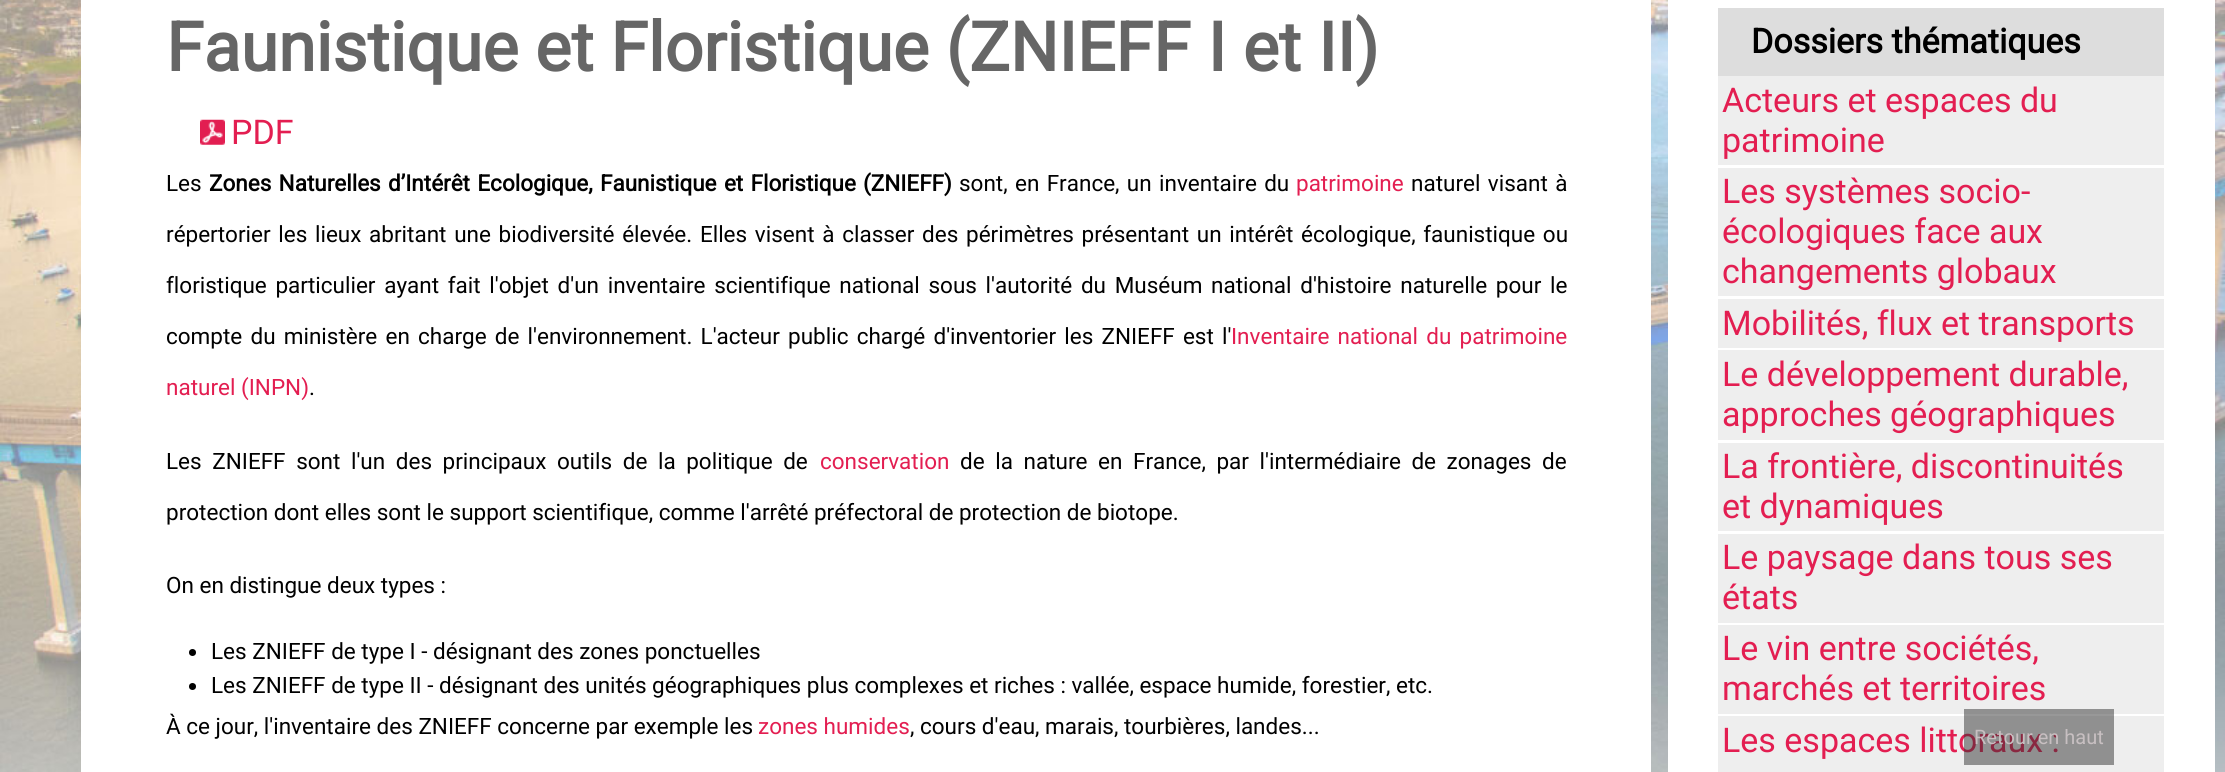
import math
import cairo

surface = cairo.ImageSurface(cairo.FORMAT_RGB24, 2225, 772)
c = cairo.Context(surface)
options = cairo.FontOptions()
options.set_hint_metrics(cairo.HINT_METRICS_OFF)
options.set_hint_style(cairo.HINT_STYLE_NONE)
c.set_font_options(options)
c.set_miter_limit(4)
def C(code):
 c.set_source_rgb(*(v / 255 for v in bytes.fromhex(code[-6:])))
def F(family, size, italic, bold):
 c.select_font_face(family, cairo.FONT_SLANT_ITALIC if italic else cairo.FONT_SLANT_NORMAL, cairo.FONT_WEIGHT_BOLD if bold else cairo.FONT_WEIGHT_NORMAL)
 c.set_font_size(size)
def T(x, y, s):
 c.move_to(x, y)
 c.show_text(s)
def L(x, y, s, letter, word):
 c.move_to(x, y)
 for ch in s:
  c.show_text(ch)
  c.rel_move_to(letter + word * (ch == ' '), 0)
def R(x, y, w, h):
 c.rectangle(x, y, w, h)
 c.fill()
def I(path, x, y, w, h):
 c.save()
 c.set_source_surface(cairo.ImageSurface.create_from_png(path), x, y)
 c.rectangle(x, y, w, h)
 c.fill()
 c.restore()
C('ffffff')
c.paint()
I('1.png',0,0,2225,772)
C('ffffff')
R(81,0,1570,772)
F('Roboto',68,0,1)
C('666666')
T(166,71,'Faunistique et Floristique (ZNIEFF I et II)')
I('2.png',200,119,25,26)
F('Roboto',34,0,0)
C('e31e51')
T(231,144,'PDF')
F('Roboto',22.5,0,0)
C('000000')
T(166,191,'Les')
F('Roboto',22.5,0,1)
L(209,191,'Zones Naturelles d’Intérêt Ecologique, Faunistique et Floristique',0,1.75)
T(863,191,'(ZNIEFF)')
F('Roboto',22.5,0,0)
L(959,191,'sont, en France, un inventaire du',0,1.75)
C('e31e51')
T(1296,191,'patrimoine')
C('000000')
L(1411,191,'naturel visant à',0,1.75)
L(166,242,'répertorier les lieux abritant une biodiversité élevée. Elles visent à classer des périmètres présentant un intérêt écologique, faunistique ou',0,2.1)
L(166,293,'floristique particulier ayant fait l\'objet d\'un inventaire scientifique national sous l\'autorité du Muséum national d\'histoire naturelle pour le',0,3.1)
L(166,344,'compte du ministère en charge de l\'environnement. L\'acteur public chargé d\'inventorier les ZNIEFF est l\'',0,2.6)
C('e31e51')
L(1231,344,'Inventaire national du patrimoine',0,2.6)
T(166,395,'naturel (INPN)')
C('000000')
T(309,395,'.')
L(166,469,'Les ZNIEFF sont l\'un des principaux outils de la politique de',0,5)
C('e31e51')
T(820,469,'conservation')
C('000000')
L(960,469,'de la nature en France, par l\'intermédiaire de zonages de',0,5)
T(166,520,'protection dont elles sont le support scientifique, comme l\'arrêté préfectoral de protection de biotope.')
T(166,593,'On en distingue deux types :')
c.new_path()
c.arc(192.5,652.5,3.5,0,2 * math.pi)
c.fill()
T(211,659,'Les ZNIEFF de type I - désignant des zones ponctuelles')
c.new_path()
c.arc(192.5,686.5,3.5,0,2 * math.pi)
c.fill()
T(211,693,'Les ZNIEFF de type II - désignant des unités géographiques plus complexes et riches : vallée, espace humide, forestier, etc.')
T(166,734,'À ce jour, l\'inventaire des ZNIEFF concerne par exemple les')
C('e31e51')
T(758,734,'zones humides')
C('000000')
T(910,734,', cours d\'eau, marais, tourbières, landes...')
C('ffffff')
R(1668,0,547,772)
C('dddddd')
R(1718,8,446,68)
F('Roboto',34,0,1)
C('000000')
T(1751,53,'Dossiers thématiques')
C('eeeeee')
R(1718,76,446,89)
F('Roboto',34,0,0)
C('e31e51')
T(1722,112,'Acteurs et espaces du')
T(1722,152,'patrimoine')
C('eeeeee')
R(1718,168,446,128)
C('e31e51')
T(1722,203,'Les systèmes socio-')
T(1722,243,'écologiques face aux')
T(1722,283,'changements globaux')
C('eeeeee')
R(1718,299,446,49)
C('e31e51')
T(1722,335,'Mobilités, flux et transports')
C('eeeeee')
R(1718,350,446,90)
C('e31e51')
T(1722,386,'Le développement durable,')
T(1722,426,'approches géographiques')
C('eeeeee')
R(1718,443,446,88)
C('e31e51')
T(1722,478,'La frontière, discontinuités')
T(1722,518,'et dynamiques')
C('eeeeee')
R(1718,534,446,89)
C('e31e51')
T(1722,569,'Le paysage dans tous ses')
T(1722,609,'états')
C('eeeeee')
R(1718,625,446,89)
C('e31e51')
T(1722,660,'Le vin entre sociétés,')
T(1722,700,'marchés et territoires')
C('eeeeee')
R(1718,716,446,56)
C('e31e51')
T(1722,752,'Les espaces littoraux :')
c.set_source_rgba(0.2,0.2,0.2,0.5)
R(1964,709,150,56)
F('Roboto',20,0,0)
C('c7bfc1')
T(1974,744,'Retour en haut')
surface.write_to_png('o.png')
